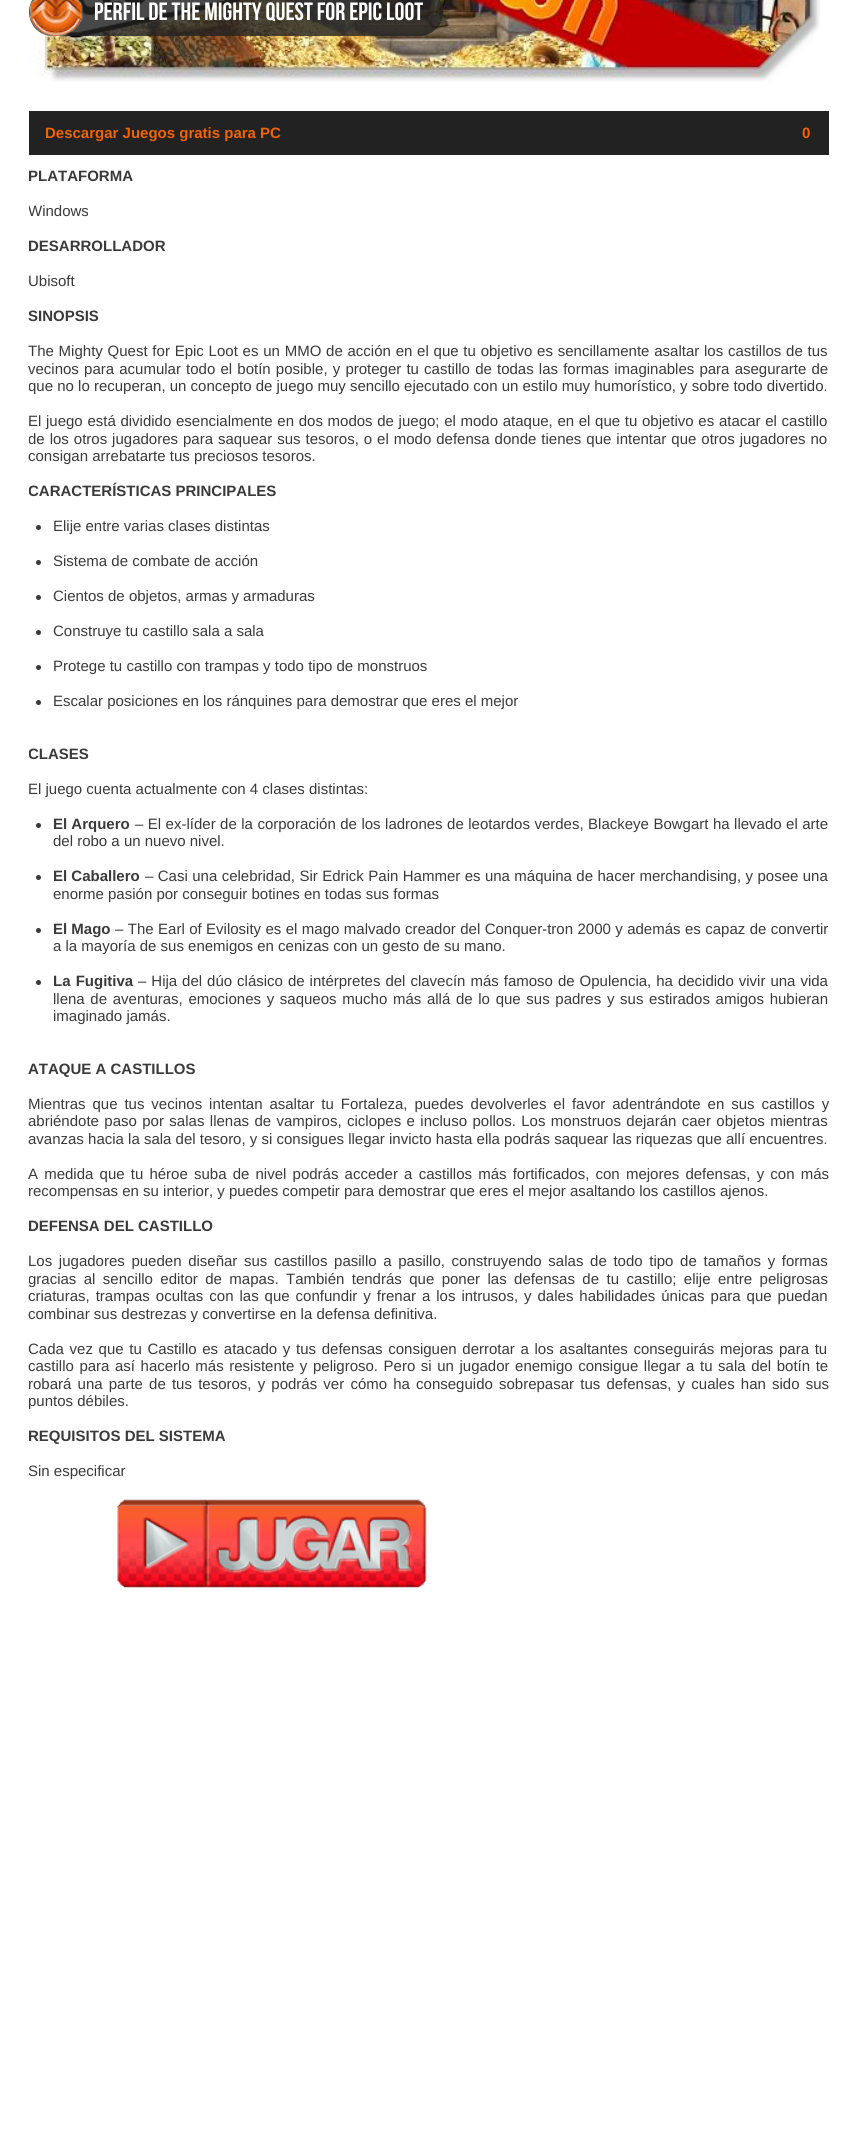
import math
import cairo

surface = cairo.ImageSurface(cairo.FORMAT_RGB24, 856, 2141)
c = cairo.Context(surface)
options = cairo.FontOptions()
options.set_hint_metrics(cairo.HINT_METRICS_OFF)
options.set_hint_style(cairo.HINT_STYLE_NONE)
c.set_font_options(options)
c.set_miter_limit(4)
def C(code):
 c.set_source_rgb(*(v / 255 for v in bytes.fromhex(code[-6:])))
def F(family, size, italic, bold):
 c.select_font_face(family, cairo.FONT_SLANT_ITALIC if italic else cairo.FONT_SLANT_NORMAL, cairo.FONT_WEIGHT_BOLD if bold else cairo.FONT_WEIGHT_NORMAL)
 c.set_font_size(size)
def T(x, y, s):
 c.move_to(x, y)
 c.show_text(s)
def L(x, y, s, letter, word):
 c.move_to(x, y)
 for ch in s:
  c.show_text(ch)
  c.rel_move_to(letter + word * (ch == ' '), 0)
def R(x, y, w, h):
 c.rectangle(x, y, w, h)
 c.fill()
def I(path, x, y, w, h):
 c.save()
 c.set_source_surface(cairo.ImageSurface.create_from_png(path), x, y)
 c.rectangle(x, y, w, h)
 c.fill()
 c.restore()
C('ffffff')
c.paint()
I('2.png',29,0,791,82)
c.set_source_rgba(0.133,0.133,0.133,0.8)
c.new_path()
c.move_to(53,-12)
c.line_to(84,-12)
c.line_to(84,36)
c.line_to(53,36)
c.curve_to(39.5,36,29,25.5,29,12)
c.curve_to(29,-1.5,39.5,-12,53,-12)
c.close_path()
c.fill()
I('1.png',29,0,54,36)
c.new_path()
c.move_to(84,-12)
c.line_to(419,-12)
c.curve_to(432.5,-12,443,-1.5,443,12)
c.curve_to(443,25.5,432.5,36,419,36)
c.line_to(84,36)
c.close_path()
c.fill()
F('Bebas Neue',25,0,0)
C('ffffff')
T(94,20,'Perfil de The Mighty Quest for Epic Loot')
C('222222')
R(29,111,800,44)
F('Liberation Sans',15,0,1)
C('f36300')
T(45,138,'Descargar Juegos gratis para PC')
T(802,138,'0')
C('3a3a3a')
T(28,181,'PLATAFORMA')
c.save()
c.rectangle(29,168,800,1422)
c.clip()
F('Liberation Sans',15,0,0)
T(28,216,'Windows')
c.restore()
T(28,251,'DESARROLLADOR')
F('Liberation Sans',15,0,0)
T(28,286,'Ubisoft')
F('Liberation Sans',15,0,1)
T(28,321,'SINOPSIS')
F('Liberation Sans',15,0,0)
L(28,356,'The Mighty Quest for Epic Loot es un MMO de acción en el que tu objetivo es sencillamente asaltar los castillos de tus',0,.6)
L(28,374,'vecinos para acumular todo el botín posible, y proteger tu castillo de todas las formas imaginables para asegurarte de',0,1)
c.save()
c.rectangle(29,168,800,1422)
c.clip()
T(28,391,'que no lo recuperan, un concepto de juego muy sencillo ejecutado con un estilo muy humorístico, y sobre todo divertido.')
c.restore()
L(28,426,'El juego está dividido esencialmente en dos modos de juego; el modo ataque, en el que tu objetivo es atacar el castillo',0,.5)
c.save()
c.rectangle(29,168,800,1422)
c.clip()
L(28,444,'de los otros jugadores para saquear sus tesoros, o el modo defensa donde tienes que intentar que otros jugadores no',0,.8)
c.restore()
T(28,461,'consigan arrebatarte tus preciosos tesoros.')
c.save()
c.rectangle(29,168,800,1422)
c.clip()
F('Liberation Sans',15,0,1)
T(28,496,'CARACTERÍSTICAS PRINCIPALES')
c.restore()
c.new_path()
c.arc(38.5,527.5,2.5,0,2 * math.pi)
c.fill()
T(53,531,'Elije entre varias clases distintas')
c.new_path()
c.arc(38.5,562.5,2.5,0,2 * math.pi)
c.fill()
T(53,566,'Sistema de combate de acción')
c.new_path()
c.arc(38.5,597.5,2.5,0,2 * math.pi)
c.fill()
T(53,601,'Cientos de objetos, armas y armaduras')
c.new_path()
c.arc(38.5,632.5,2.5,0,2 * math.pi)
c.fill()
T(53,636,'Construye tu castillo sala a sala')
c.new_path()
c.arc(38.5,667.5,2.5,0,2 * math.pi)
c.fill()
T(53,671,'Protege tu castillo con trampas y todo tipo de monstruos')
c.new_path()
c.arc(38.5,702.5,2.5,0,2 * math.pi)
c.fill()
T(53,706,'Escalar posiciones en los ránquines para demostrar que eres el mejor')
c.save()
c.rectangle(29,168,800,1422)
c.clip()
F('Liberation Sans',15,0,1)
T(28,759,'CLASES')
c.restore()
T(28,794,'El juego cuenta actualmente con 4 clases distintas:')
c.new_path()
c.arc(38.5,825.5,2.5,0,2 * math.pi)
c.fill()
F('Liberation Sans',15,0,1)
T(53,829,'El Arquero')
F('Liberation Sans',15,0,0)
L(135,829,'– El ex-líder de la corporación de los ladrones de leotardos verdes, Blackeye Bowgart ha llevado el arte',0,.3)
T(53,846,'del robo a un nuevo nivel.')
c.new_path()
c.arc(38.5,877.5,2.5,0,2 * math.pi)
c.fill()
F('Liberation Sans',15,0,1)
T(53,881,'El Caballero')
F('Liberation Sans',15,0,0)
L(145,881,'– Casi una celebridad, Sir Edrick Pain Hammer es una máquina de hacer merchandising, y posee una',0,.25)
T(53,899,'enorme pasión por conseguir botines en todas sus formas')
c.new_path()
c.arc(38.5,930.5,2.5,0,2 * math.pi)
c.fill()
F('Liberation Sans',15,0,1)
T(53,934,'El Mago')
F('Liberation Sans',15,0,0)
L(115,934,'– The Earl of Evilosity es el mago malvado creador del Conquer-tron 2000 y además es capaz de convertir',0,.25)
T(53,951,'a la mayoría de sus enemigos en cenizas con un gesto de su mano.')
c.new_path()
c.arc(38.5,982.5,2.5,0,2 * math.pi)
c.fill()
F('Liberation Sans',15,0,1)
L(53,986,'La Fugitiva',0,1)
F('Liberation Sans',15,0,0)
L(138,986,'– Hija del dúo clásico de intérpretes del clavecín más famoso de Opulencia, ha decidido vivir una vida',0,.8)
L(53,1004,'llena de aventuras, emociones y saqueos mucho más allá de lo que sus padres y sus estirados amigos hubieran',0,1.5)
T(53,1021,'imaginado jamás.')
F('Liberation Sans',15,0,1)
T(28,1074,'ATAQUE A CASTILLOS')
F('Liberation Sans',15,0,0)
L(28,1109,'Mientras que tus vecinos intentan asaltar tu Fortaleza, puedes devolverles el favor adentrándote en sus castillos y',0,2.75)
L(28,1126,'abriéndote paso por salas llenas de vampiros, ciclopes e incluso pollos. Los monstruos dejarán caer objetos mientras',0,1.25)
T(28,1144,'avanzas hacia la sala del tesoro, y si consigues llegar invicto hasta ella podrás saquear las riquezas que allí encuentres.')
L(28,1179,'A medida que tu héroe suba de nivel podrás acceder a castillos más fortificados, con mejores defensas, y con más',0,2)
T(28,1196,'recompensas en su interior, y puedes competir para demostrar que eres el mejor asaltando los castillos ajenos.')
F('Liberation Sans',15,0,1)
T(28,1231,'DEFENSA DEL CASTILLO')
F('Liberation Sans',15,0,0)
L(28,1266,'Los jugadores pueden diseñar sus castillos pasillo a pasillo, construyendo salas de todo tipo de tamaños y formas',0,2.5)
c.save()
c.rectangle(29,168,800,1422)
c.clip()
L(28,1284,'gracias al sencillo editor de mapas. También tendrás que poner las defensas de tu castillo; elije entre peligrosas',0,3.25)
c.restore()
L(28,1301,'criaturas, trampas ocultas con las que confundir y frenar a los intrusos, y dales habilidades únicas para que puedan',0,1.8)
T(28,1319,'combinar sus destrezas y convertirse en la defensa definitiva.')
L(28,1354,'Cada vez que tu Castillo es atacado y tus defensas consiguen derrotar a los asaltantes conseguirás mejoras para tu',0,1.5)
L(28,1371,'castillo para así hacerlo más resistente y peligroso. Pero si un jugador enemigo consigue llegar a tu sala del botín te',0,1.4)
L(28,1389,'robará una parte de tus tesoros, y podrás ver cómo ha conseguido sobrepasar tus defensas, y cuales han sido sus',0,2)
T(28,1406,'puntos débiles.')
F('Liberation Sans',15,0,1)
T(28,1441,'REQUISITOS DEL SISTEMA')
F('Liberation Sans',15,0,0)
T(28,1476,'Sin especificar')
I('3.png',117,1499,310,89)
surface.write_to_png('o.png')
